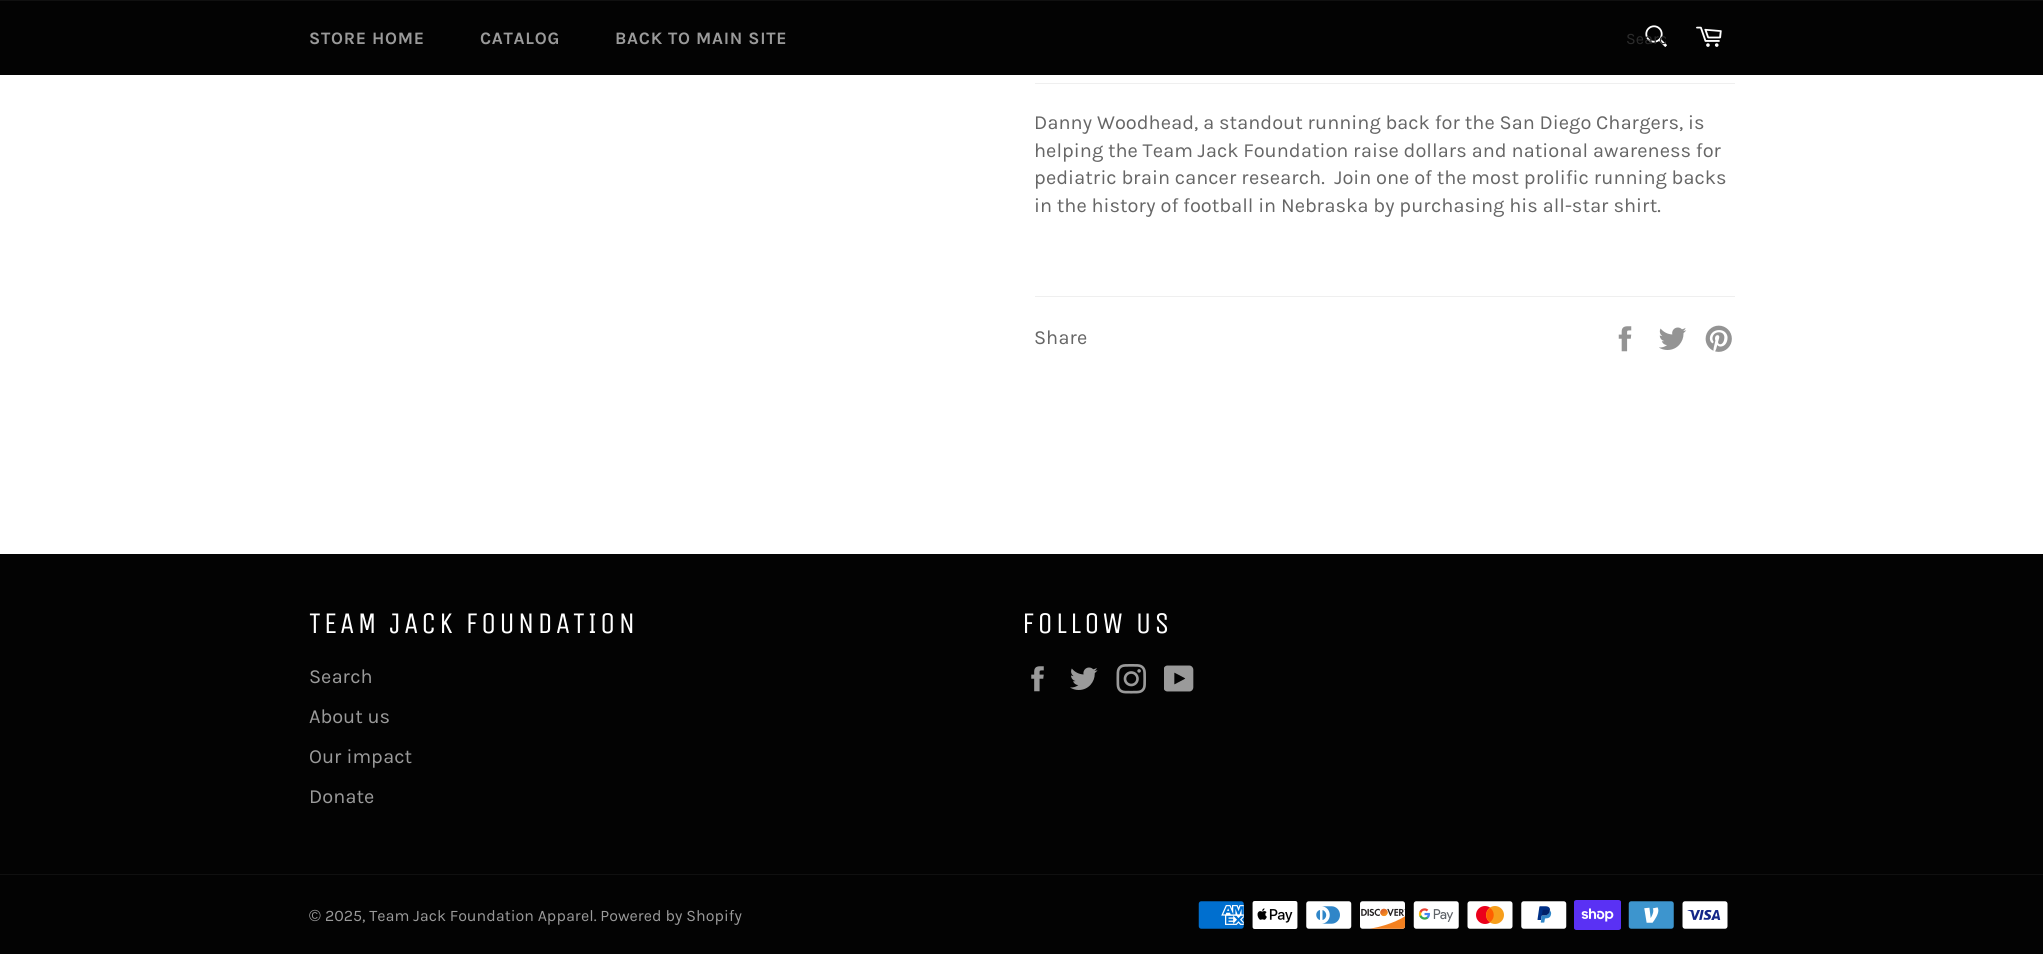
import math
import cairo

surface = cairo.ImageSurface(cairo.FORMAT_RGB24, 2043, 954)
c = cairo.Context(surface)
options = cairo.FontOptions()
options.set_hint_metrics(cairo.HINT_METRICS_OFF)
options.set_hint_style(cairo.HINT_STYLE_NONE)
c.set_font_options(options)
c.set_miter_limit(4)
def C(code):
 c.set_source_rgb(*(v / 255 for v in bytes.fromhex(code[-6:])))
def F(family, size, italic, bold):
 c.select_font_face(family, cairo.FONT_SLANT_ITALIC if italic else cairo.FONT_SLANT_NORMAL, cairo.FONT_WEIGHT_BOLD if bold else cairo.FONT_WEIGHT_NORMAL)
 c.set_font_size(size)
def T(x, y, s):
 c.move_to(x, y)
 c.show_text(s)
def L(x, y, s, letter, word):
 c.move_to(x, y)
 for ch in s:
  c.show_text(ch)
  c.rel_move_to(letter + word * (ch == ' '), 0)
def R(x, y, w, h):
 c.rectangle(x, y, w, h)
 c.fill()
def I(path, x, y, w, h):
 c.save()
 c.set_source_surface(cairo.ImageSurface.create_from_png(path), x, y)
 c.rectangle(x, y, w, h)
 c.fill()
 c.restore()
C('ffffff')
c.paint()
C('030303')
R(0,1,2043,74)
C('101010')
R(0,0,2043,1)
F('Karla',17.5,0,1)
C('9a9a9a')
L(309,44,'STORE HOME',.75,0)
L(480,44,'CATALOG',.75,0)
L(615,44,'BACK TO MAIN SITE',.75,0)
I('1.png',1645,25,22,22)
c.save()
c.rectangle(1626,29,40,19)
c.clip()
F('Karla',16,0,0)
C('2c2c2c')
T(1626,44,'Searc')
c.restore()
I('2.png',1696,26,26,21)
C('efefef')
R(1035,83,700,1)
F('Karla',20,0,0)
C('666666')
T(1034,129,'Danny Woodhead, a standout running back for the San Diego Chargers, is')
T(1034,157,'helping the Team Jack Foundation raise dollars and national awareness for')
T(1034,184,'pediatric brain cancer research.  Join one of the most prolific running backs')
T(1034,212,'in the history of football in Nebraska by purchasing his all-star shirt.')
C('efefef')
R(1035,296,700,1)
C('666666')
T(1034,344,'Share')
I('3.png',1618,326,14,26)
I('4.png',1659,327,28,23)
I('5.png',1705,325,27,27)
C('030303')
R(0,554,2043,400)
F('Unica One',30,0,0)
C('ffffff')
L(309,633,'TEAM JACK FOUNDATION',3,0)
F('Karla',20,0,0)
C('9a9a9a')
T(309,683,'Search')
T(309,723,'About us')
T(309,763,'Our impact')
T(309,803,'Donate')
F('Unica One',30,0,0)
C('ffffff')
L(1022,633,'FOLLOW US',3,0)
I('6.png',1031,666,13,26)
I('7.png',1070,667,28,23)
I('8.png',1116,664,30,30)
I('9.png',1164,665,30,27)
C('101010')
R(0,874,2043,1)
F('Liberation Sans',16,0,0)
C('9a9a9a')
T(309,921,'©')
F('Karla',16,0,0)
T(325,921,'2025, Team Jack Foundation Apparel. Powered by Shopify')
I('10.png',1198,901,46,28)
I('11.png',1252,901,46,28)
I('12.png',1306,901,46,28)
I('13.png',1360,901,46,28)
I('14.png',1413,901,46,28)
I('15.png',1467,901,46,28)
I('16.png',1521,901,46,28)
I('17.png',1574,900,47,30)
I('18.png',1628,901,46,28)
I('19.png',1682,901,46,28)
surface.write_to_png('o.png')
